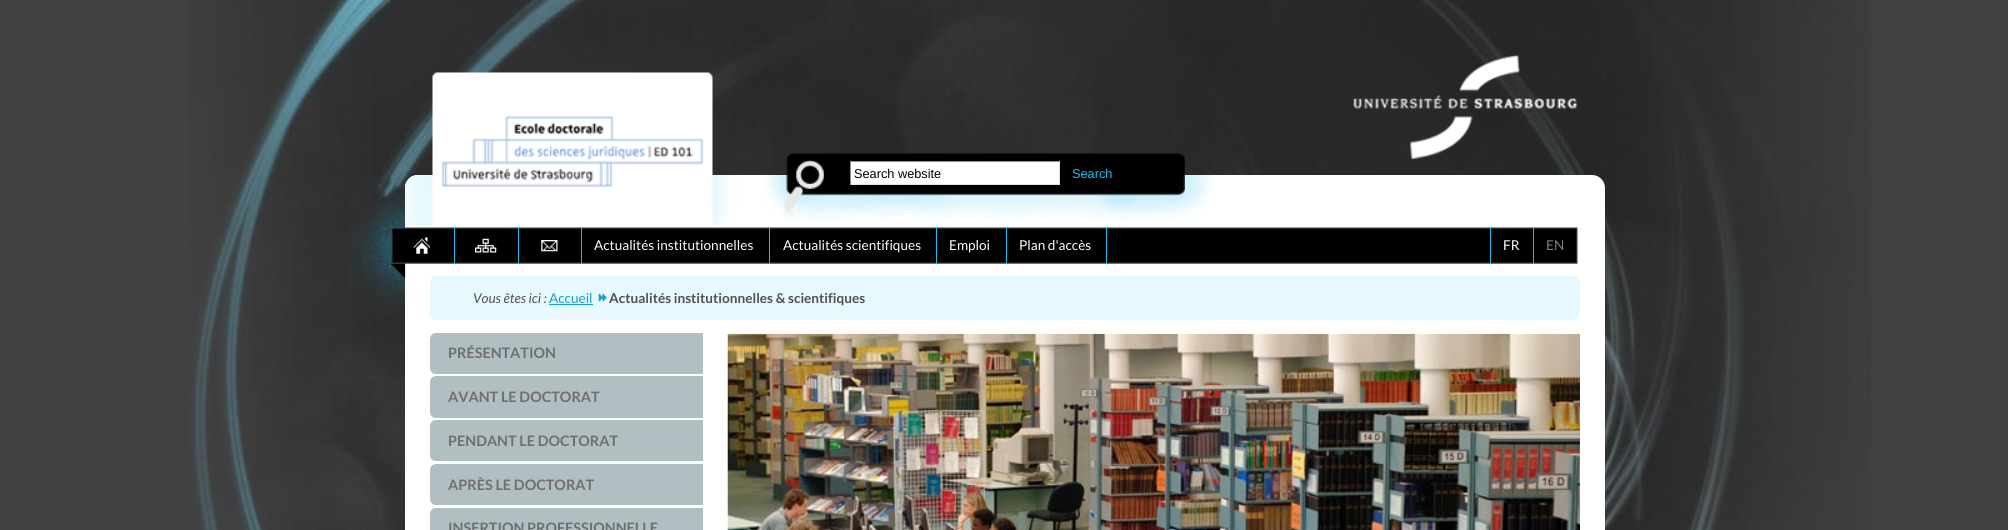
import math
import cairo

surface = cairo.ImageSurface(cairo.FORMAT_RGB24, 2008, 530)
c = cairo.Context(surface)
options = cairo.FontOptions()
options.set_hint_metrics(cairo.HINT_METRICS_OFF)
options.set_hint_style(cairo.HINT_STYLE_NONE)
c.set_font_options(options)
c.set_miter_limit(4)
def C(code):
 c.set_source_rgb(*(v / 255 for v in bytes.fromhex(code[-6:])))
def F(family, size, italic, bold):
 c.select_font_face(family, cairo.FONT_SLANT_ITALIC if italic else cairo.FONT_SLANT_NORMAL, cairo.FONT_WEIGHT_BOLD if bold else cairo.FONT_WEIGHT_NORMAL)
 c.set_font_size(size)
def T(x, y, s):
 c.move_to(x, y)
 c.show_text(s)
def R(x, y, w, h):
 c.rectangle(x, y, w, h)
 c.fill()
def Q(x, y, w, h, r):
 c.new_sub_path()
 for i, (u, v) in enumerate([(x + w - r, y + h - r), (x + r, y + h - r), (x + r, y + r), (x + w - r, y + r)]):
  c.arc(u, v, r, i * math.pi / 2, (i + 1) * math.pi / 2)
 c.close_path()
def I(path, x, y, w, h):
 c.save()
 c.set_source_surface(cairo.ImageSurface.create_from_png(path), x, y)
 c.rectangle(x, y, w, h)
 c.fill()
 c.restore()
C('414141')
c.paint()
I('1.png',189,0,1682,530)
C('ffffff')
Q(405,175,1200,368,13)
c.fill()
I('2.png',405,175,811,50)
I('3.png',432,72,281,153)
I('4.png',783,152,402,65)
R(851,162,208,22)
C('8e8e8e')
R(850,161,210,1)
C('e1e1e1')
R(1059,161,1,24)
R(850,184,210,1)
C('8e8e8e')
R(850,161,1,24)
F('Liberation Sans',12.75,0,0)
C('000000')
T(854,178,'Search website')
C('16c2f4')
T(1072,178,'Search')
I('5.png',1353,55,225,104)
C('e7f9fe')
Q(430,276,1150,44,6)
c.fill()
I('6.png',391,227,1187,51)
C('16c2f4')
R(454,228,1,36)
I('7.png',413,237,17,17)
R(518,228,1,36)
I('8.png',475,238,22,15)
R(581,228,1,36)
I('9.png',541,240,17,12)
R(769,228,1,36)
F('Lato',13.6,0,0)
C('ffffff')
T(594,250,'Actualités institutionnelles')
C('16c2f4')
R(936,228,1,36)
C('ffffff')
T(783,250,'Actualités scientifiques')
C('16c2f4')
R(1006,228,1,36)
C('ffffff')
T(949,250,'Emploi')
C('16c2f4')
R(1106,228,1,36)
C('ffffff')
T(1019,250,'Plan d\'accès')
C('16c2f4')
R(1490,228,1,36)
C('ffffff')
T(1503,250,'FR')
C('16c2f4')
R(1533,228,1,36)
C('808080')
T(1546,250,'EN')
F('Lato',13.6,1,0)
C('515151')
T(473,303,'Vous êtes ici :')
F('Lato',13.6,0,0)
C('12a0c9')
T(549,303,'Accueil')
R(549,304,44,1)
I('10.png',598,293,9,9)
F('Lato',13.6,0,1)
C('515151')
T(609,303,'Actualités institutionnelles & scientifiques')
C('b1bfc3')
c.new_path()
c.move_to(436,333)
c.line_to(709,333)
c.line_to(709,374)
c.line_to(436,374)
c.curve_to(432.5,374,430,371.5,430,368)
c.line_to(430,339)
c.curve_to(430,335.5,432.5,333,436,333)
c.close_path()
c.fill()
C('ffffff')
R(703,333,6,41)
F('Lato',14.4,0,1)
C('6f6f6f')
T(448,358,'PRÉSENTATION')
C('b1bfc3')
c.new_path()
c.move_to(436,376)
c.line_to(709,376)
c.line_to(709,418)
c.line_to(436,418)
c.curve_to(432.5,418,430,415.5,430,412)
c.line_to(430,382)
c.curve_to(430,378.5,432.5,376,436,376)
c.close_path()
c.fill()
C('ffffff')
R(703,376,6,42)
C('6f6f6f')
T(448,402,'AVANT LE DOCTORAT')
C('b1bfc3')
c.new_path()
c.move_to(436,420)
c.line_to(709,420)
c.line_to(709,461)
c.line_to(436,461)
c.curve_to(432.5,461,430,458.5,430,455)
c.line_to(430,426)
c.curve_to(430,422.5,432.5,420,436,420)
c.close_path()
c.fill()
C('ffffff')
R(703,420,6,41)
C('6f6f6f')
T(448,446,'PENDANT LE DOCTORAT')
C('b1bfc3')
c.new_path()
c.move_to(436,464)
c.line_to(709,464)
c.line_to(709,505)
c.line_to(436,505)
c.curve_to(432.5,505,430,502.5,430,499)
c.line_to(430,470)
c.curve_to(430,466.5,432.5,464,436,464)
c.close_path()
c.fill()
C('ffffff')
R(703,464,6,41)
C('6f6f6f')
T(448,490,'APRÈS LE DOCTORAT')
C('b1bfc3')
c.new_path()
c.move_to(436,508)
c.line_to(709,508)
c.line_to(709,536)
c.line_to(436,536)
c.curve_to(432.5,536,430,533.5,430,530)
c.line_to(430,514)
c.curve_to(430,510.5,432.5,508,436,508)
c.close_path()
c.fill()
C('ffffff')
R(703,508,6,22)
C('6f6f6f')
T(448,533,'INSERTION PROFESSIONNELLE')
I('11.png',727,333,853,197)
surface.write_to_png('o.png')
